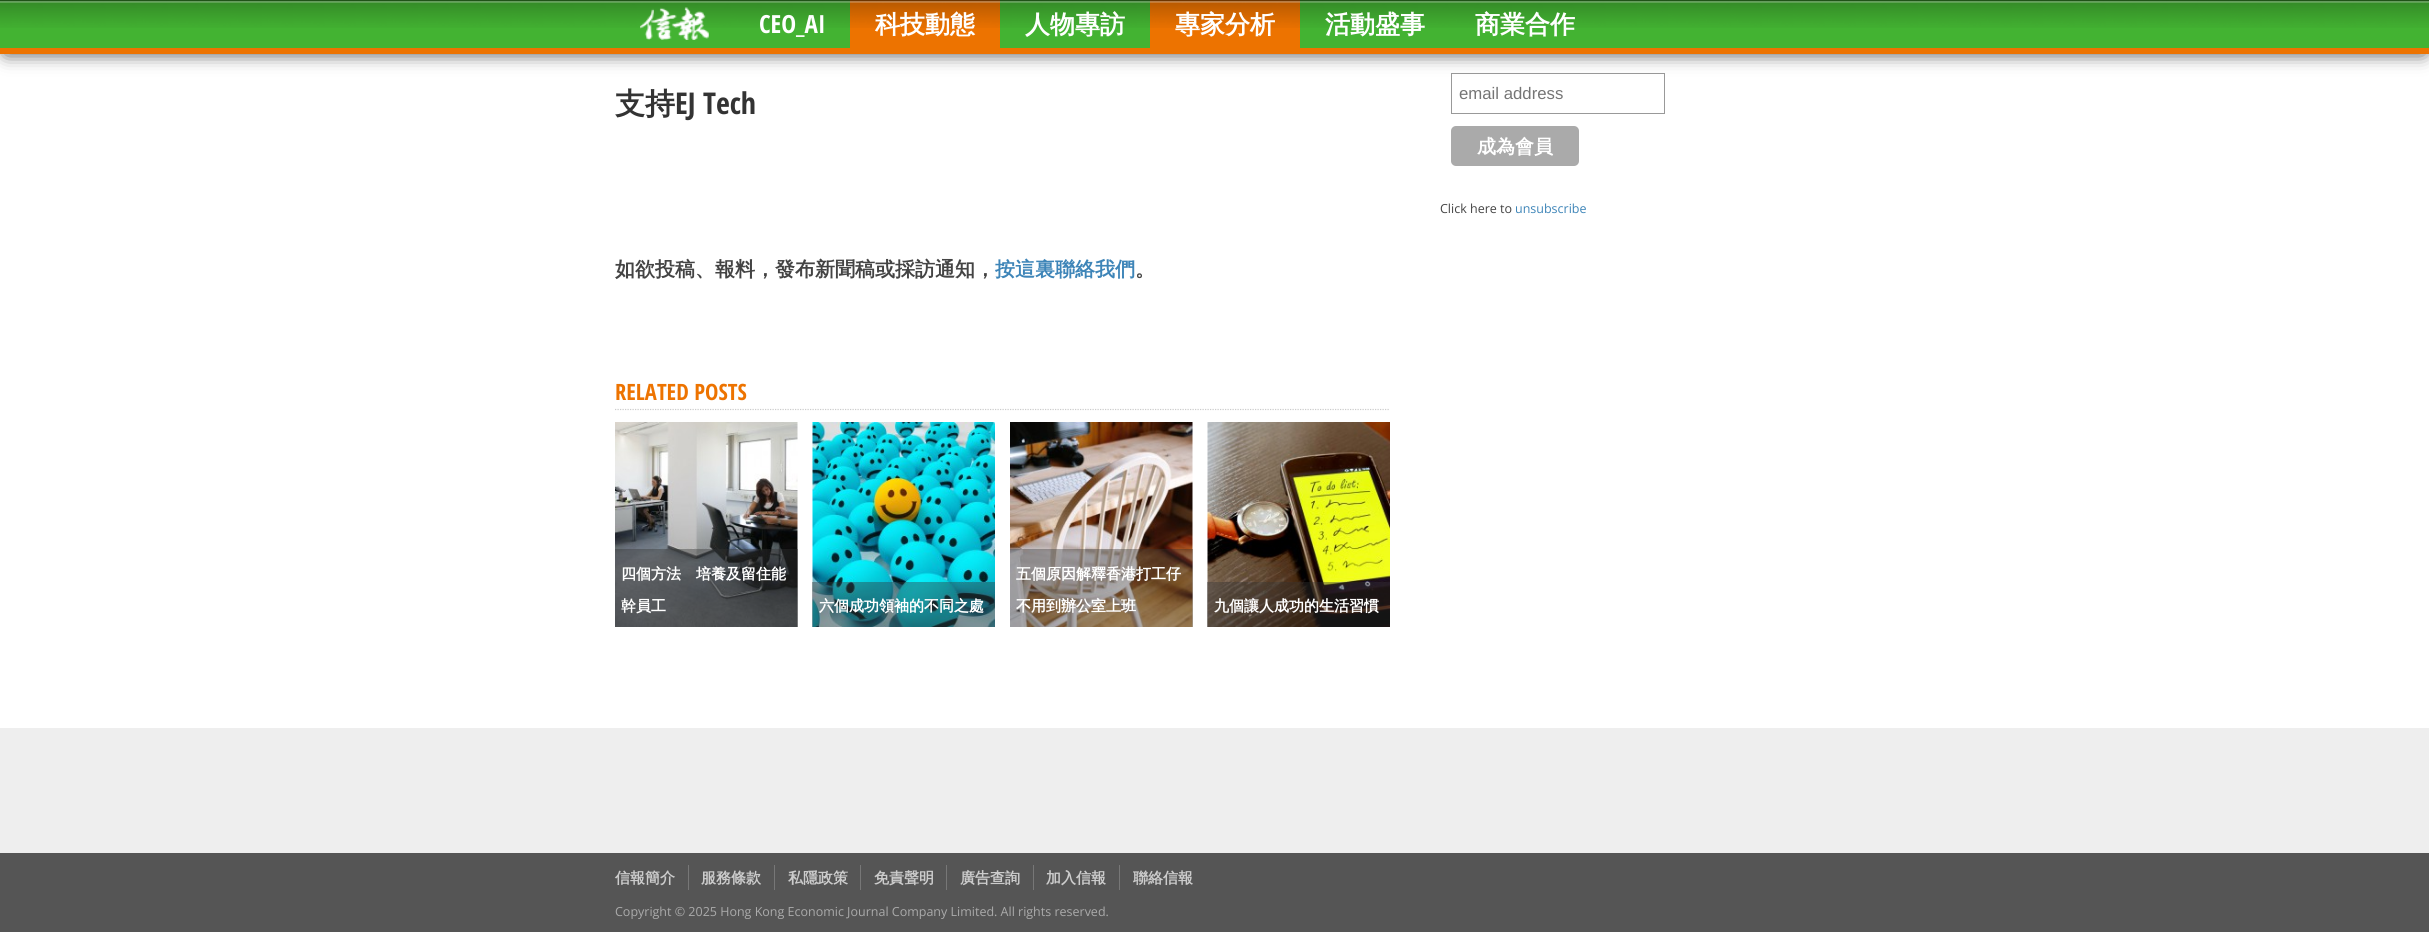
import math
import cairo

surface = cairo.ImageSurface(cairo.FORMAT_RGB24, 2429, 932)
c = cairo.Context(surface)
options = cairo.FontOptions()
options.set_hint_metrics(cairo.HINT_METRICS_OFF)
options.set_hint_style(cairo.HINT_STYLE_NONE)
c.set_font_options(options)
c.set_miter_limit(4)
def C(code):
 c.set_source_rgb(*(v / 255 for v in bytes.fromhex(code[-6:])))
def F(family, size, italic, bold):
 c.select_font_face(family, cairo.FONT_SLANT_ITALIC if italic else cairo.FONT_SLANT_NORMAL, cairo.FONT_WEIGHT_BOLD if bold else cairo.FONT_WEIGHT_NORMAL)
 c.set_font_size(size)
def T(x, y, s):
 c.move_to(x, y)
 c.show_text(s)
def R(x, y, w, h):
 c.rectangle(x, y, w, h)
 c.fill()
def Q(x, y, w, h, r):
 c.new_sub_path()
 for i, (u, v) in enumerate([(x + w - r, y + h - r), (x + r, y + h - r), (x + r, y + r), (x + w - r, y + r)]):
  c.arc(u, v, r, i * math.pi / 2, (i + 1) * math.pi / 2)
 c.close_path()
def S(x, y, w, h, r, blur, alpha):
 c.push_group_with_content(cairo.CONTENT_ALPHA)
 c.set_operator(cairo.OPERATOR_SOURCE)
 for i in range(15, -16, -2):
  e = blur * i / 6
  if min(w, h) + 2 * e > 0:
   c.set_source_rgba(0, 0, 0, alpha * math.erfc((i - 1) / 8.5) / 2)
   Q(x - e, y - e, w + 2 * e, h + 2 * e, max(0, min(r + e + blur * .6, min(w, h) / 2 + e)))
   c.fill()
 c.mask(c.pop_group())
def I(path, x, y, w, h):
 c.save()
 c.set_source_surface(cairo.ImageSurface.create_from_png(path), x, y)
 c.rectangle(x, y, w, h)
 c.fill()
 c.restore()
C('ffffff')
c.paint()
c.rectangle(1451.5,73.5,213,40)
C('999999')
c.set_line_width(1)
c.stroke()
C('555555')
S(6,11,2418,42,0,9.5,1)
S(6,1,2418,42,0,9.5,1)
C('43b332')
R(0,0,2429,48)
I('1.png',0,0,2429,28)
C('ed7300')
R(0,48,2429,6)
I('2.png',640,7,69,33)
F('Open Sans Condensed',25,0,1)
C('ffffff')
T(759,33,'CEO_AI')
C('ed7300')
R(850,0,150,48)
I('3.png',850,0,150,28)
F('WenQuanYi Zen Hei',25,0,1)
C('ffffff')
T(875,33,'科技動態')
T(1025,33,'人物專訪')
C('ed7300')
R(1150,0,150,48)
I('4.png',1150,0,150,28)
C('ffffff')
T(1175,33,'專家分析')
T(1325,33,'活動盛事')
T(1475,33,'商業合作')
F('WenQuanYi Zen Hei',30,0,1)
C('333333')
T(615,114,'支持')
F('Open Sans Condensed',30,0,1)
T(675,114,'EJ Tech')
F('WenQuanYi Zen Hei',20,0,1)
C('444444')
T(615,276,'如欲投稿、報料，發布新聞稿或採訪通知，')
C('3e85b8')
T(995,276,'按這裏聯絡我們')
C('444444')
T(1135,276,'。')
c.new_path()
c.move_to(615,409.5)
c.line_to(1390,409.5)
C('cccccc')
c.set_line_width(1.2)
c.set_dash([1.25,1.25])
c.stroke()
F('Open Sans Condensed',22.5,0,1)
C('ed7300')
T(615,400,'RELATED POSTS')
I('5.png',615,422,183,205)
c.set_source_rgba(0.196,0.196,0.196,0.4)
R(615,549,183,78)
F('WenQuanYi Zen Hei',15,0,1)
C('ffffff')
T(621,579,'四個方法　培養及留住能')
T(621,611,'幹員工')
I('6.png',812,422,183,205)
c.set_source_rgba(0.196,0.196,0.196,0.4)
R(812,582,183,45)
C('ffffff')
T(819,611,'六個成功領袖的不同之處')
I('7.png',1010,422,183,205)
c.set_source_rgba(0.196,0.196,0.196,0.4)
R(1010,549,183,78)
C('ffffff')
T(1016,579,'五個原因解釋香港打工仔')
T(1016,611,'不用到辦公室上班')
I('8.png',1207,422,183,205)
c.set_source_rgba(0.196,0.196,0.196,0.4)
R(1207,582,183,45)
C('ffffff')
T(1214,611,'九個讓人成功的生活習慣')
F('Liberation Sans',16.75,0,0)
C('757575')
T(1459,99,'email address')
C('aaaaaa')
Q(1451,126,128,40,5)
c.fill()
F('WenQuanYi Zen Hei',19,0,1)
C('ffffff')
T(1477,153,'成為會員')
F('Open Sans',12.5,0,0)
C('444444')
T(1440,213,'Click here to')
C('3e85b8')
T(1515,213,'unsubscribe')
C('eeeeee')
R(0,728,2429,125)
C('555555')
R(0,853,2429,79)
C('777777')
R(688,865,1,25)
F('WenQuanYi Zen Hei',15,0,1)
C('cccccc')
T(615,883,'信報簡介')
C('777777')
R(774,865,1,25)
C('cccccc')
T(701,883,'服務條款')
C('777777')
R(860,865,1,25)
C('cccccc')
T(788,883,'私隱政策')
C('777777')
R(946,865,1,25)
C('cccccc')
T(874,883,'免責聲明')
C('777777')
R(1033,865,1,25)
C('cccccc')
T(960,883,'廣告查詢')
C('777777')
R(1119,865,1,25)
C('cccccc')
T(1046,883,'加入信報')
T(1133,883,'聯絡信報')
F('Open Sans',12.5,0,0)
C('aaaaaa')
T(615,916,'Copyright © 2025 Hong Kong Economic Journal Company Limited. All rights reserved.')
surface.write_to_png('o.png')
